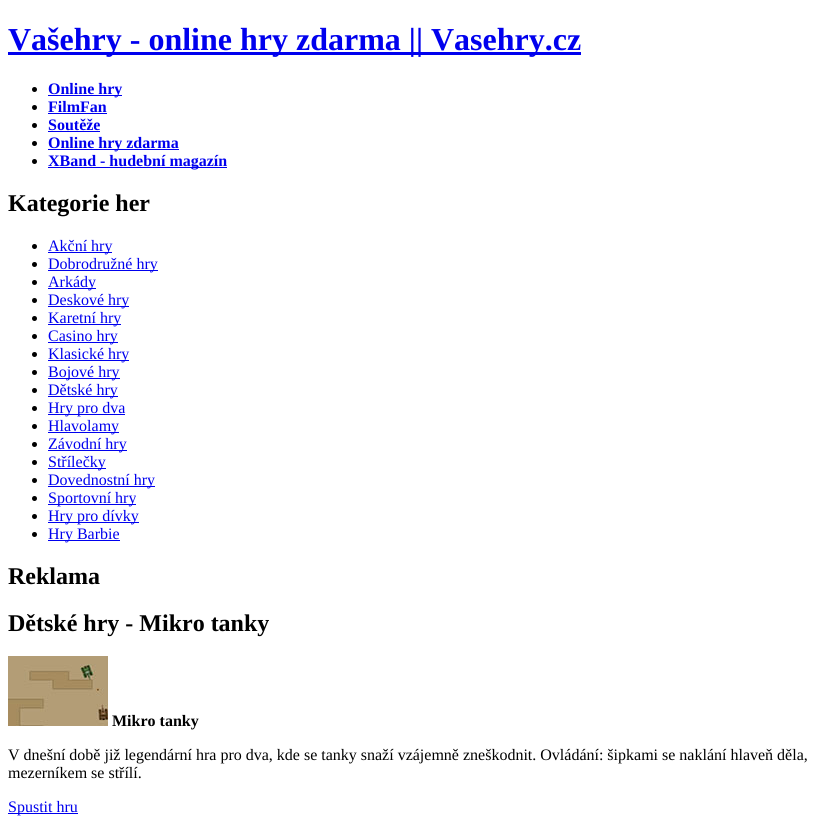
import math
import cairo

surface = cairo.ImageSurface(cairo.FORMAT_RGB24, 833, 817)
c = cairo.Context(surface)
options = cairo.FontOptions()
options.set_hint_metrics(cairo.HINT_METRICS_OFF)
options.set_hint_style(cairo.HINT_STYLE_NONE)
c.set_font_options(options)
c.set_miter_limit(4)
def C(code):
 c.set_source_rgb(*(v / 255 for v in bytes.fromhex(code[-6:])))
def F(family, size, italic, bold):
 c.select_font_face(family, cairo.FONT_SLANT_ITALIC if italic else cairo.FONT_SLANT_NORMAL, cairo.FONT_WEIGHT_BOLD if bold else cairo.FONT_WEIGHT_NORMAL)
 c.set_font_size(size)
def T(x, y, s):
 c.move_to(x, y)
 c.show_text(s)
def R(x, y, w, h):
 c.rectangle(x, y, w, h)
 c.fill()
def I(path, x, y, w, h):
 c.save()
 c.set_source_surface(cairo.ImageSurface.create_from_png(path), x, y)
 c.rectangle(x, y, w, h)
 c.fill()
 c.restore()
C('ffffff')
c.paint()
C('0000ee')
R(8,52,573,3)
F('Liberation Serif',32,0,1)
T(8,50,'Vašehry - online hry zdarma || Vasehry.cz')
C('000000')
c.new_path()
c.arc(34.5,89.5,2.5,0,2 * math.pi)
c.fill()
C('0000ee')
R(48,95,74,1)
F('Liberation Serif',16,0,1)
T(48,94,'Online hry')
C('000000')
c.new_path()
c.arc(34.5,107.5,2.5,0,2 * math.pi)
c.fill()
C('0000ee')
T(48,112,'FilmFan')
R(48,113,59,1)
C('000000')
c.new_path()
c.arc(34.5,125.5,2.5,0,2 * math.pi)
c.fill()
C('0000ee')
T(48,130,'Soutěže')
R(48,131,52,1)
C('000000')
c.new_path()
c.arc(34.5,143.5,2.5,0,2 * math.pi)
c.fill()
C('0000ee')
R(48,149,131,1)
T(48,148,'Online hry zdarma')
C('000000')
c.new_path()
c.arc(34.5,161.5,2.5,0,2 * math.pi)
c.fill()
C('0000ee')
R(48,167,179,1)
T(48,166,'XBand - hudební magazín')
F('Liberation Serif',24,0,1)
C('000000')
T(8,211,'Kategorie her')
c.new_path()
c.arc(34.5,246.5,2.5,0,2 * math.pi)
c.fill()
C('0000ee')
R(48,252,64,1)
F('Liberation Serif',16,0,0)
T(48,251,'Akční hry')
C('000000')
c.new_path()
c.arc(34.5,264.5,2.5,0,2 * math.pi)
c.fill()
C('0000ee')
R(48,270,110,1)
T(48,269,'Dobrodružné hry')
C('000000')
c.new_path()
c.arc(34.5,282.5,2.5,0,2 * math.pi)
c.fill()
C('0000ee')
R(48,288,48,1)
T(48,287,'Arkády')
C('000000')
c.new_path()
c.arc(34.5,300.5,2.5,0,2 * math.pi)
c.fill()
C('0000ee')
R(48,306,81,1)
T(48,305,'Deskové hry')
C('000000')
c.new_path()
c.arc(34.5,318.5,2.5,0,2 * math.pi)
c.fill()
C('0000ee')
R(48,324,73,1)
T(48,323,'Karetní hry')
C('000000')
c.new_path()
c.arc(34.5,336.5,2.5,0,2 * math.pi)
c.fill()
C('0000ee')
R(48,342,70,1)
T(48,341,'Casino hry')
C('000000')
c.new_path()
c.arc(34.5,354.5,2.5,0,2 * math.pi)
c.fill()
C('0000ee')
R(48,360,81,1)
T(48,359,'Klasické hry')
C('000000')
c.new_path()
c.arc(34.5,372.5,2.5,0,2 * math.pi)
c.fill()
C('0000ee')
R(48,378,72,1)
T(48,377,'Bojové hry')
C('000000')
c.new_path()
c.arc(34.5,390.5,2.5,0,2 * math.pi)
c.fill()
C('0000ee')
R(48,396,70,1)
T(48,395,'Dětské hry')
C('000000')
c.new_path()
c.arc(34.5,408.5,2.5,0,2 * math.pi)
c.fill()
C('0000ee')
R(48,414,77,1)
T(48,413,'Hry pro dva')
C('000000')
c.new_path()
c.arc(34.5,426.5,2.5,0,2 * math.pi)
c.fill()
C('0000ee')
R(48,432,71,1)
T(48,431,'Hlavolamy')
C('000000')
c.new_path()
c.arc(34.5,444.5,2.5,0,2 * math.pi)
c.fill()
C('0000ee')
R(48,450,79,1)
T(48,449,'Závodní hry')
C('000000')
c.new_path()
c.arc(34.5,462.5,2.5,0,2 * math.pi)
c.fill()
C('0000ee')
R(48,468,58,1)
T(48,467,'Střílečky')
C('000000')
c.new_path()
c.arc(34.5,480.5,2.5,0,2 * math.pi)
c.fill()
C('0000ee')
R(48,486,107,1)
T(48,485,'Dovednostní hry')
C('000000')
c.new_path()
c.arc(34.5,498.5,2.5,0,2 * math.pi)
c.fill()
C('0000ee')
R(48,504,88,1)
T(48,503,'Sportovní hry')
C('000000')
c.new_path()
c.arc(34.5,516.5,2.5,0,2 * math.pi)
c.fill()
C('0000ee')
R(48,522,91,1)
T(48,521,'Hry pro dívky')
C('000000')
c.new_path()
c.arc(34.5,534.5,2.5,0,2 * math.pi)
c.fill()
C('0000ee')
R(48,540,72,1)
T(48,539,'Hry Barbie')
F('Liberation Serif',24,0,1)
C('000000')
T(8,584,'Reklama')
T(8,631,'Dětské hry - Mikro tanky')
I('1.png',8,656,100,70)
F('Liberation Serif',16,0,1)
T(112,726,'Mikro tanky')
F('Liberation Serif',16,0,0)
T(8,760,'V dnešní době již legendární hra pro dva, kde se tanky snaží vzájemně zneškodnit. Ovládání: šipkami se naklání hlaveň děla,')
T(8,778,'mezerníkem se střílí.')
C('0000ee')
R(8,813,70,1)
T(8,812,'Spustit hru')
surface.write_to_png('o.png')
